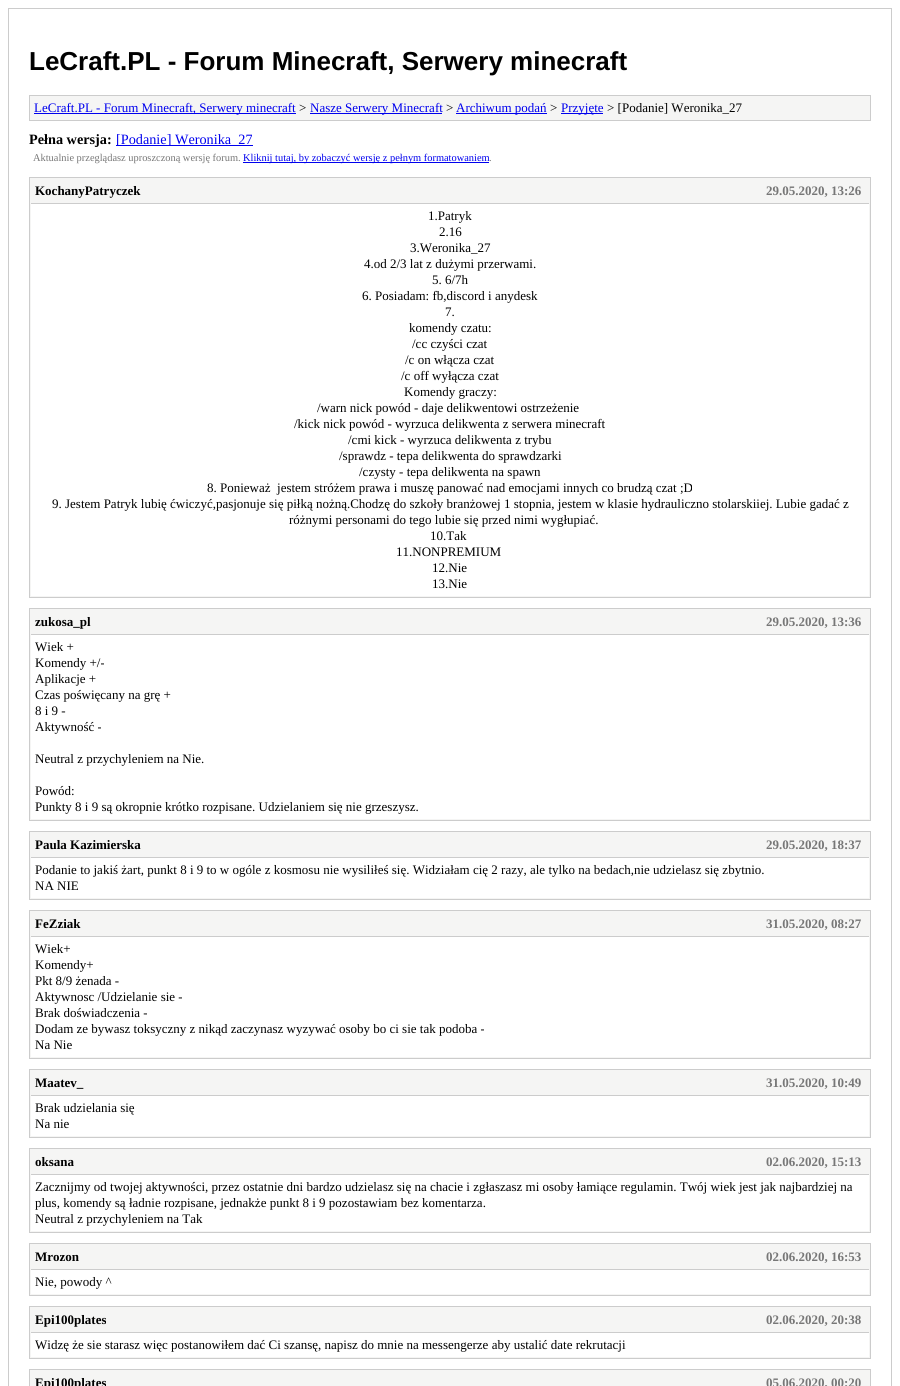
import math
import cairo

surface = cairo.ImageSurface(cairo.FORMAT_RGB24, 900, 1386)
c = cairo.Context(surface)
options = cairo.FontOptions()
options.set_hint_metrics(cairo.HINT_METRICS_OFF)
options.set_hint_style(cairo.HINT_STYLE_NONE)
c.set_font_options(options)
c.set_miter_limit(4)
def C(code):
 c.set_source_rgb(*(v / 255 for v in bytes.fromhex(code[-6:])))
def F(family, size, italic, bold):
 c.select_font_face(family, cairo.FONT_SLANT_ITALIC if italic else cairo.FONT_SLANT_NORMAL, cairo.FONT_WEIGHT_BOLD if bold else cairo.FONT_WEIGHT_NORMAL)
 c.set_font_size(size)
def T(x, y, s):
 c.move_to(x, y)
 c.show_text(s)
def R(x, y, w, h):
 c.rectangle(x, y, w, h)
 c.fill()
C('ffffff')
c.paint()
c.rectangle(8.5,8.5,883,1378)
C('cccccc')
c.set_line_width(1)
c.stroke()
F('Liberation Sans',26,0,1)
C('000000')
T(29,70,'LeCraft.PL - Forum Minecraft, Serwery minecraft')
C('f5f5f4')
c.rectangle(29.5,95.5,841,25)
c.fill_preserve()
C('cccccc')
c.stroke()
C('0000ee')
R(34,113,262,1)
F('Liberation Serif',13,0,0)
T(34,112,'LeCraft.PL - Forum Minecraft, Serwery minecraft')
C('000000')
T(299,112,'>')
C('0000ee')
R(310,113,132,1)
T(310,112,'Nasze Serwery Minecraft')
C('000000')
T(446,112,'>')
C('0000ee')
R(456,113,91,1)
T(456,112,'Archiwum podań')
C('000000')
T(550,112,'>')
C('0000ee')
R(561,113,42,1)
T(561,112,'Przyjęte')
C('000000')
T(607,112,'> [Podanie] Weronika_27')
F('Liberation Serif',14.25,0,1)
T(29,144,'Pełna wersja:')
C('0000ee')
R(116,145,137,1)
F('Liberation Serif',14.25,0,0)
T(116,144,'[Podanie] Weronika_27')
F('Liberation Serif',10.4,0,0)
C('777777')
T(33,161,'Aktualnie przeglądasz uproszczoną wersję forum.')
C('0000ee')
R(243,162,246,1)
T(243,161,'Kliknij tutaj, by zobaczyć wersję z pełnym formatowaniem')
C('777777')
T(489,161,'.')
C('f5f5f4')
c.rectangle(29.5,177.5,841,420)
c.fill_preserve()
C('cccccc')
c.stroke()
R(31,203,838,1)
F('Liberation Serif',13,0,1)
C('000000')
T(35,195,'KochanyPatryczek')
C('777777')
T(766,195,'29.05.2020, 13:26')
C('ffffff')
R(31,204,838,392)
F('Liberation Serif',13,0,0)
C('000000')
T(428,220,'1.Patryk')
T(439,236,'2.16')
T(410,252,'3.Weronika_27')
T(364,268,'4.od 2/3 lat z dużymi przerwami.')
T(432,284,'5. 6/7h')
T(362,300,'6. Posiadam: fb,discord i anydesk')
T(445,316,'7.')
T(409,332,'komendy czatu:')
T(412,348,'/cc czyści czat')
T(405,364,'/c on włącza czat')
T(401,380,'/c off wyłącza czat')
T(404,396,'Komendy graczy:')
T(317,412,'/warn nick powód - daje delikwentowi ostrzeżenie')
T(294,428,'/kick nick powód - wyrzuca delikwenta z serwera minecraft')
T(348,444,'/cmi kick - wyrzuca delikwenta z trybu')
T(339,460,'/sprawdz - tepa delikwenta do sprawdzarki')
T(359,476,'/czysty - tepa delikwenta na spawn')
T(207,492,'8. Ponieważ  jestem stróżem prawa i muszę panować nad emocjami innych co brudzą czat ;D')
T(52,508,'9. Jestem Patryk lubię ćwiczyć,pasjonuje się piłką nożną.Chodzę do szkoły branżowej 1 stopnia, jestem w klasie hydrauliczno stolarskiiej. Lubie gadać z')
T(289,524,'różnymi personami do tego lubie się przed nimi wygłupiać.')
T(430,540,'10.Tak')
T(396,556,'11.NONPREMIUM')
T(432,572,'12.Nie')
T(432,588,'13.Nie')
C('f5f5f4')
c.rectangle(29.5,608.5,841,212)
c.fill_preserve()
C('cccccc')
c.stroke()
R(31,634,838,1)
F('Liberation Serif',13,0,1)
C('000000')
T(35,626,'zukosa_pl')
C('777777')
T(766,626,'29.05.2020, 13:36')
C('ffffff')
R(31,635,838,184)
F('Liberation Serif',13,0,0)
C('000000')
T(35,651,'Wiek +')
T(35,667,'Komendy +/-')
T(35,683,'Aplikacje +')
T(35,699,'Czas poświęcany na grę +')
T(35,715,'8 i 9 -')
T(35,731,'Aktywność -')
T(35,763,'Neutral z przychyleniem na Nie.')
T(35,795,'Powód:')
T(35,811,'Punkty 8 i 9 są okropnie krótko rozpisane. Udzielaniem się nie grzeszysz.')
C('f5f5f4')
c.rectangle(29.5,831.5,841,68)
c.fill_preserve()
C('cccccc')
c.stroke()
R(31,857,838,1)
F('Liberation Serif',13,0,1)
C('000000')
T(35,849,'Paula Kazimierska')
C('777777')
T(766,849,'29.05.2020, 18:37')
C('ffffff')
R(31,858,838,40)
F('Liberation Serif',13,0,0)
C('000000')
T(35,874,'Podanie to jakiś żart, punkt 8 i 9 to w ogóle z kosmosu nie wysiliłeś się. Widziałam cię 2 razy, ale tylko na bedach,nie udzielasz się zbytnio.')
T(35,890,'NA NIE')
C('f5f5f4')
c.rectangle(29.5,910.5,841,148)
c.fill_preserve()
C('cccccc')
c.stroke()
R(31,936,838,1)
F('Liberation Serif',13,0,1)
C('000000')
T(35,928,'FeZziak')
C('777777')
T(766,928,'31.05.2020, 08:27')
C('ffffff')
R(31,937,838,120)
F('Liberation Serif',13,0,0)
C('000000')
T(35,953,'Wiek+')
T(35,969,'Komendy+')
T(35,985,'Pkt 8/9 żenada -')
T(35,1001,'Aktywnosc /Udzielanie sie -')
T(35,1017,'Brak doświadczenia -')
T(35,1033,'Dodam ze bywasz toksyczny z nikąd zaczynasz wyzywać osoby bo ci sie tak podoba -')
T(35,1049,'Na Nie')
C('f5f5f4')
c.rectangle(29.5,1069.5,841,68)
c.fill_preserve()
C('cccccc')
c.stroke()
R(31,1095,838,1)
F('Liberation Serif',13,0,1)
C('000000')
T(35,1087,'Maatev_')
C('777777')
T(766,1087,'31.05.2020, 10:49')
C('ffffff')
R(31,1096,838,40)
F('Liberation Serif',13,0,0)
C('000000')
T(35,1112,'Brak udzielania się')
T(35,1128,'Na nie')
C('f5f5f4')
c.rectangle(29.5,1148.5,841,84)
c.fill_preserve()
C('cccccc')
c.stroke()
R(31,1174,838,1)
F('Liberation Serif',13,0,1)
C('000000')
T(35,1166,'oksana')
C('777777')
T(766,1166,'02.06.2020, 15:13')
C('ffffff')
R(31,1175,838,56)
F('Liberation Serif',13,0,0)
C('000000')
T(35,1191,'Zacznijmy od twojej aktywności, przez ostatnie dni bardzo udzielasz się na chacie i zgłaszasz mi osoby łamiące regulamin. Twój wiek jest jak najbardziej na')
T(35,1207,'plus, komendy są ładnie rozpisane, jednakże punkt 8 i 9 pozostawiam bez komentarza.')
T(35,1223,'Neutral z przychyleniem na Tak')
C('f5f5f4')
c.rectangle(29.5,1243.5,841,52)
c.fill_preserve()
C('cccccc')
c.stroke()
R(31,1269,838,1)
F('Liberation Serif',13,0,1)
C('000000')
T(35,1261,'Mrozon')
C('777777')
T(766,1261,'02.06.2020, 16:53')
C('ffffff')
R(31,1270,838,24)
F('Liberation Serif',13,0,0)
C('000000')
T(35,1286,'Nie, powody ^')
C('f5f5f4')
c.rectangle(29.5,1306.5,841,52)
c.fill_preserve()
C('cccccc')
c.stroke()
R(31,1332,838,1)
F('Liberation Serif',13,0,1)
C('000000')
T(35,1324,'Epi100plates')
C('777777')
T(766,1324,'02.06.2020, 20:38')
C('ffffff')
R(31,1333,838,24)
F('Liberation Serif',13,0,0)
C('000000')
T(35,1349,'Widzę że sie starasz więc postanowiłem dać Ci szansę, napisz do mnie na messengerze aby ustalić date rekrutacji')
C('f5f5f4')
c.rectangle(29.5,1369.5,841,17)
c.fill_preserve()
C('cccccc')
c.stroke()
F('Liberation Serif',13,0,1)
C('000000')
T(35,1387,'Epi100plates')
C('777777')
T(766,1387,'05.06.2020, 00:20')
surface.write_to_png('o.png')
